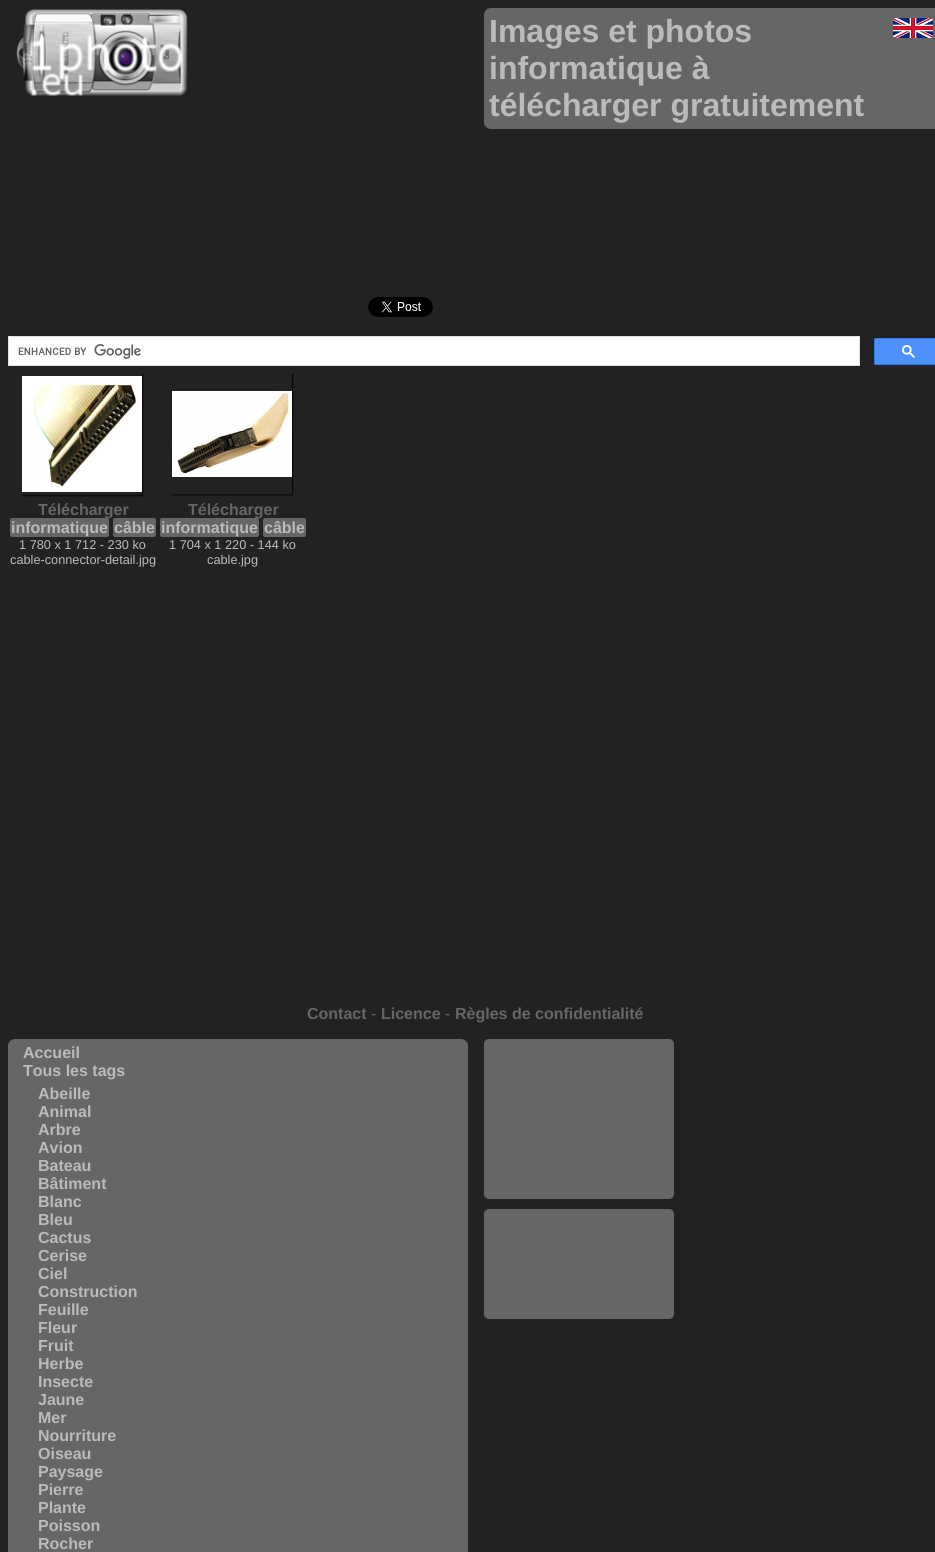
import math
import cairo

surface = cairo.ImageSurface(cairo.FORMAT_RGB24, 935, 1552)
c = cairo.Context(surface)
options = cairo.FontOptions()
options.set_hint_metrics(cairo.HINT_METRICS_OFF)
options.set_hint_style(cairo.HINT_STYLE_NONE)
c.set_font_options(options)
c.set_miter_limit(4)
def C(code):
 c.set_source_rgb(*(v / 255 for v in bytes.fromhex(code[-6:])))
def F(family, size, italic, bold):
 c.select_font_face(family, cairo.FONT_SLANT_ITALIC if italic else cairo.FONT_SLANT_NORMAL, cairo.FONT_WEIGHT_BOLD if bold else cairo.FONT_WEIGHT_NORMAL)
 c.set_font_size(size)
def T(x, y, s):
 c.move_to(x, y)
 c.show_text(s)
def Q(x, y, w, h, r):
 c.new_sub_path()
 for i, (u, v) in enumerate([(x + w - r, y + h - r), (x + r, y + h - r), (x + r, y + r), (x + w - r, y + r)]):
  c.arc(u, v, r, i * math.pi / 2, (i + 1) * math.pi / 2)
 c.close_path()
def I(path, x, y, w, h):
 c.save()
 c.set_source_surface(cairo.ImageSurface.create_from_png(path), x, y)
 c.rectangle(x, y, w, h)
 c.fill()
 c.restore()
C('222222')
c.paint()
I('1.png',16,9,172,87)
C('666666')
Q(484,8,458,121,7)
c.fill()
F('Liberation Sans',32,0,1)
C('bbbbbb')
T(489,42,'Images et photos')
T(489,79,'informatique à')
T(489,116,'télécharger gratuitement')
I('2.png',893,18,40,20)
I('3.png',368,297,65,20)
C('ffffff')
c.rectangle(8.5,336.5,851,29)
c.fill_preserve()
C('dfe1e5')
c.set_line_width(1)
c.stroke()
I('4.png',18,344,123,15)
C('4d90fe')
Q(874.5,338.5,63,26,1.5)
c.fill_preserve()
C('3079ed')
c.stroke()
I('5.png',902,345,13,13)
I('6.png',22,374,122,123)
F('Liberation Sans',16,0,1)
C('666666')
T(38,515,'Télécharger')
Q(10,518,99,19,2)
c.fill()
C('bbbbbb')
T(11,533,'informatique')
C('666666')
Q(113,518,43,19,2)
c.fill()
C('bbbbbb')
T(114,533,'câble')
F('Liberation Sans',12.75,0,0)
T(19,549,'1 780 x 1 712 - 230 ko')
T(10,564,'cable-connector-detail.jpg')
I('7.png',172,374,122,122)
F('Liberation Sans',16,0,1)
C('666666')
T(188,515,'Télécharger')
Q(160,518,99,19,2)
c.fill()
C('bbbbbb')
T(161,533,'informatique')
C('666666')
Q(263,518,43,19,2)
c.fill()
C('bbbbbb')
T(264,533,'câble')
F('Liberation Sans',12.75,0,0)
T(169,549,'1 704 x 1 220 - 144 ko')
T(207,564,'cable.jpg')
F('Liberation Sans',16,0,1)
C('666666')
T(307,1019,'Contact')
F('Liberation Sans',16,0,0)
T(371,1019,'-')
F('Liberation Sans',16,0,1)
T(381,1019,'Licence')
F('Liberation Sans',16,0,0)
T(445,1019,'-')
F('Liberation Sans',16,0,1)
T(455,1019,'Règles de confidentialité')
Q(8,1039,460,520,7)
c.fill()
C('bbbbbb')
T(23,1058,'Accueil')
T(23,1076,'Tous les tags')
T(38,1099,'Abeille')
T(38,1117,'Animal')
T(38,1135,'Arbre')
T(38,1153,'Avion')
T(38,1171,'Bateau')
T(38,1189,'Bâtiment')
T(38,1207,'Blanc')
T(38,1225,'Bleu')
T(38,1243,'Cactus')
T(38,1261,'Cerise')
T(38,1279,'Ciel')
T(38,1297,'Construction')
T(38,1315,'Feuille')
T(38,1333,'Fleur')
T(38,1351,'Fruit')
T(38,1369,'Herbe')
T(38,1387,'Insecte')
T(38,1405,'Jaune')
T(38,1423,'Mer')
T(38,1441,'Nourriture')
T(38,1459,'Oiseau')
T(38,1477,'Paysage')
T(38,1495,'Pierre')
T(38,1513,'Plante')
T(38,1531,'Poisson')
T(38,1549,'Rocher')
C('666666')
Q(484,1039,190,160,5)
c.fill()
Q(484,1209,190,110,5)
c.fill()
surface.write_to_png('o.png')
